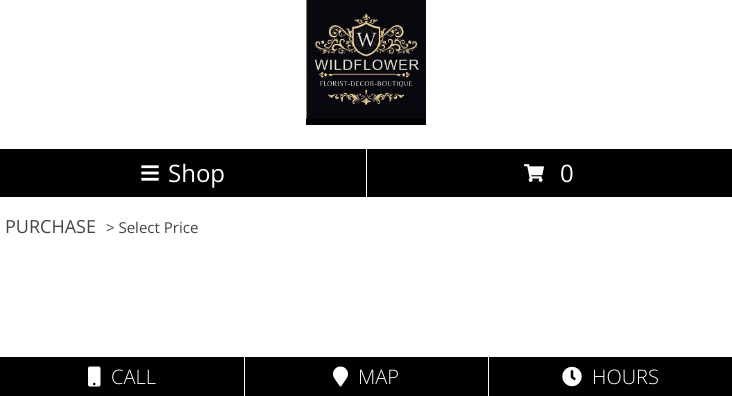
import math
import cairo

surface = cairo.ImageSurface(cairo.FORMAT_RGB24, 732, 396)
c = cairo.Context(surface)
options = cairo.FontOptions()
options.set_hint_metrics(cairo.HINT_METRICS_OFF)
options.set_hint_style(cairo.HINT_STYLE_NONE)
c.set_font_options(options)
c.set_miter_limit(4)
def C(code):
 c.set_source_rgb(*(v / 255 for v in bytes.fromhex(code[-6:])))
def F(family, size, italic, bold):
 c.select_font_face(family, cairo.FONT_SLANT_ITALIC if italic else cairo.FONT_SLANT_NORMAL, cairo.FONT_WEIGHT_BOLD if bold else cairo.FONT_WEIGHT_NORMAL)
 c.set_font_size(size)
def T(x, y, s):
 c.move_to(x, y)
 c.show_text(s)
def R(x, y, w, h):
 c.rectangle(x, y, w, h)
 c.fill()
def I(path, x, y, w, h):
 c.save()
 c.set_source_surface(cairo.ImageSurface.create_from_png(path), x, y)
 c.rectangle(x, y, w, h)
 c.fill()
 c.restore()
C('ffffff')
c.paint()
I('1.png',306,0,120,125)
C('000000')
R(0,149,366,48)
I('2.png',141,165,18,16)
F('Open Sans',24,0,0)
C('ffffff')
T(168,182,'Shop')
C('000000')
R(367,149,365,48)
I('3.png',524,164,20,18)
C('ffffff')
T(560,182,'0')
F('Open Sans',18,0,0)
C('444444')
T(5,233,'PURCHASE')
F('Open Sans',15,0,0)
T(106,233,'> Select Price')
C('000000')
R(0,357,244,39)
I('4.png',88,366,13,21)
F('Open Sans Light',20,0,0)
C('ffffff')
T(111,384,'CALL')
C('000000')
R(245,357,243,39)
I('5.png',333,366,15,21)
C('ffffff')
T(358,384,'MAP')
C('000000')
R(489,357,243,39)
I('6.png',562,366,20,21)
C('ffffff')
T(592,384,'HOURS')
surface.write_to_png('o.png')
